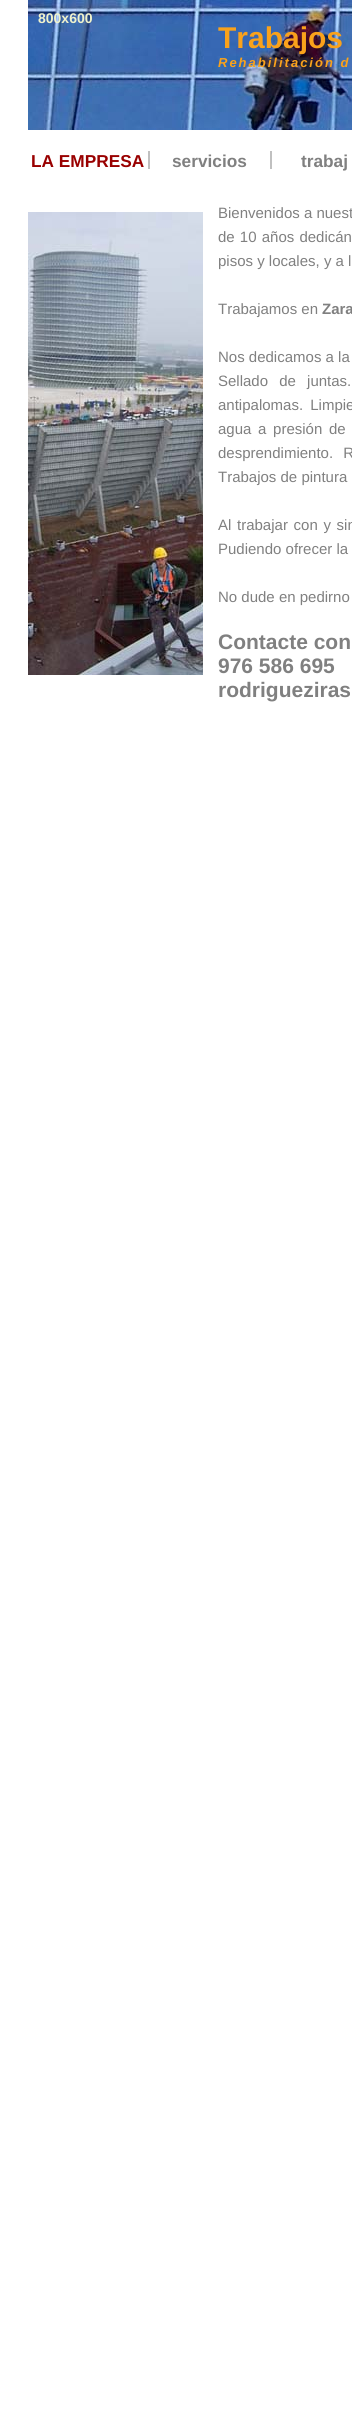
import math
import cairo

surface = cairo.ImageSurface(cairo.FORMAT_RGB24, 352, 2434)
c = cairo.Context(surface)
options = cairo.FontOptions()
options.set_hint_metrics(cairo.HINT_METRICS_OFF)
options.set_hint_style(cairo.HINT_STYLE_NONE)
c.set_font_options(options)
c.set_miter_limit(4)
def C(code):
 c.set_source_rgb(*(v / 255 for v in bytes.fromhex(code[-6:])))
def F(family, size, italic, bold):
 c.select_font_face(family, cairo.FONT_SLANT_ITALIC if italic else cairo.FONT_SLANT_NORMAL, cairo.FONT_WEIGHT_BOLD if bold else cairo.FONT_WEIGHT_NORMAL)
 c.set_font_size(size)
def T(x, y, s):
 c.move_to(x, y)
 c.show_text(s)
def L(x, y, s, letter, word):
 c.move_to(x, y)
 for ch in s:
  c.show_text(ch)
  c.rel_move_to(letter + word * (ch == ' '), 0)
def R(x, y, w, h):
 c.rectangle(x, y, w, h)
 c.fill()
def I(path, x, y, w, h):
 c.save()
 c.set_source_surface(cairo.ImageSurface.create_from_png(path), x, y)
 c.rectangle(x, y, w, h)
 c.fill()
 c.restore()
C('ffffff')
c.paint()
I('1.png',28,0,324,130)
F('Liberation Sans',14,0,1)
C('eff2cc')
T(38,23,'800x600')
F('Liberation Sans',30,0,1)
C('faa21b')
T(218,48,'Trabajos')
F('Liberation Sans',13,1,1)
L(218,67,'Rehabilitación d',2,0)
C('c0c0c0')
R(148,151,2,18)
F('Liberation Sans',17.25,0,1)
C('990000')
T(31,167,'LA EMPRESA')
C('c0c0c0')
R(270,151,2,18)
C('808080')
T(172,167,'servicios')
T(301,167,'trabaj')
I('2.png',28,212,175,463)
F('Liberation Sans',15,0,0)
T(218,218,'Bienvenidos a nuest')
L(218,242,'de 10 años dedicán',0,1)
T(218,266,'pisos y locales, y a l')
T(218,314,'Trabajamos en')
F('Liberation Sans',15,0,1)
T(322,314,'Zara')
F('Liberation Sans',15,0,0)
T(218,362,'Nos dedicamos a la')
L(218,386,'Sellado de juntas.',0,7)
L(218,410,'antipalomas. Limpie',0,3)
L(218,434,'agua a presión de',0,2.5)
L(218,458,'desprendimiento. R',0,6)
T(218,482,'Trabajos de pintura')
L(218,530,'Al trabajar con y sin',0,1.5)
T(218,554,'Pudiendo ofrecer la')
T(218,602,'No dude en pedirno')
F('Liberation Sans',21,0,1)
T(218,649,'Contacte con')
T(218,673,'976 586 695')
T(218,697,'rodrigueziras')
surface.write_to_png('o.png')
